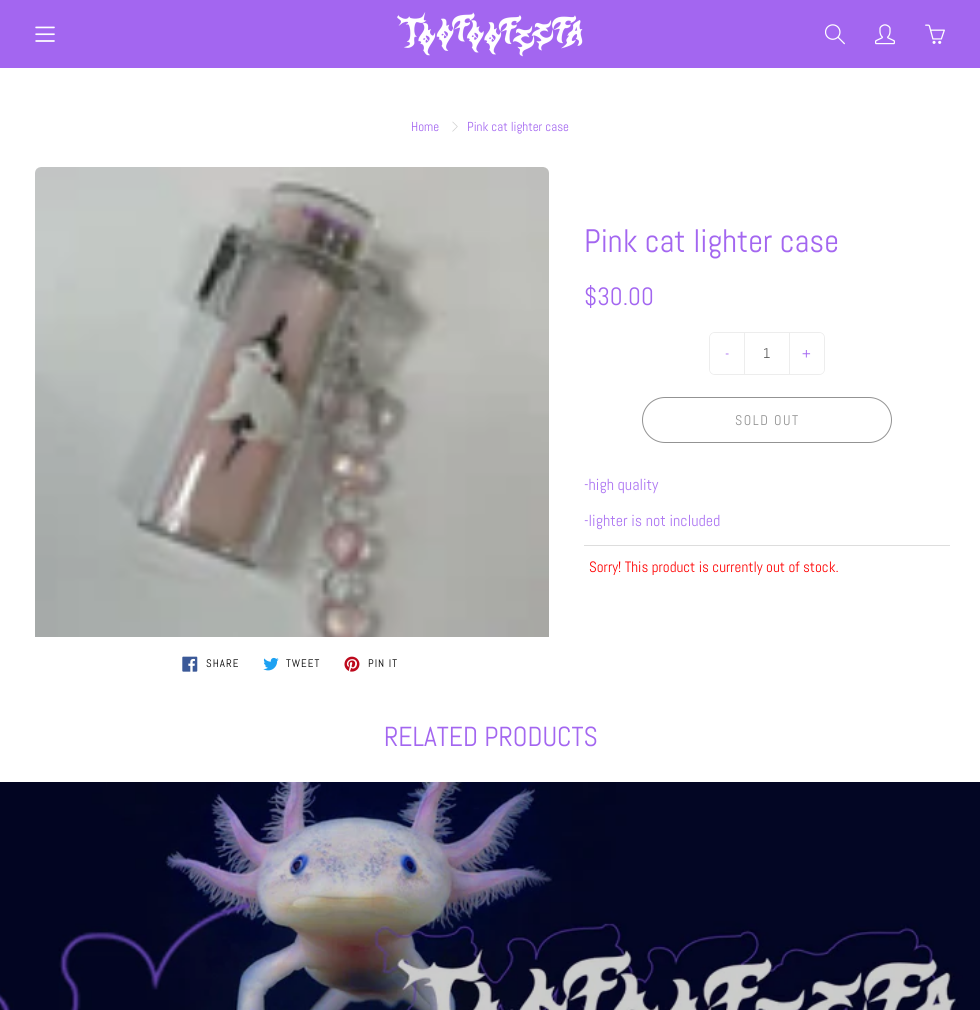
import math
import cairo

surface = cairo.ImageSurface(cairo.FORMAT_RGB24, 980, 1010)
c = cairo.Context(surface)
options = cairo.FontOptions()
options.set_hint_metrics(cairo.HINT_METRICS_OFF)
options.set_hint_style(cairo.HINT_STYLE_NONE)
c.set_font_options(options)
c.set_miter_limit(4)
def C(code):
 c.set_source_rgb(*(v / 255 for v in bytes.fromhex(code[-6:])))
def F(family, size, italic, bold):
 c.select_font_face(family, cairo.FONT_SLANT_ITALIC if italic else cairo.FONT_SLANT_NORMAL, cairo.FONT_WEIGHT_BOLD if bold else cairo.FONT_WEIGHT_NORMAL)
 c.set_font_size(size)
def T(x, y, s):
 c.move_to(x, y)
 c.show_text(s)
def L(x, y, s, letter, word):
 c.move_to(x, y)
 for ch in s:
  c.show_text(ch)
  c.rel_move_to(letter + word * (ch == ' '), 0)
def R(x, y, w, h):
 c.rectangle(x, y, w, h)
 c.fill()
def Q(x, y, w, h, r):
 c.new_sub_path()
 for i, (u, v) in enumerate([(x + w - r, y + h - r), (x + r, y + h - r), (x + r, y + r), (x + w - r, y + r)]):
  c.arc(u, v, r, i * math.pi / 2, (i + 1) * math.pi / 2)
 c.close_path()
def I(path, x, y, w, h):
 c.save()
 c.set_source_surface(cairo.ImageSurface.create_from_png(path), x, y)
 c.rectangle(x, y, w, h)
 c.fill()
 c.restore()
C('ffffff')
c.paint()
C('a366f0')
R(0,0,980,68)
I('1.png',397,12,186,45)
I('2.png',35,26,20,16)
I('3.png',825,24,20,21)
I('4.png',875,24,20,21)
I('5.png',925,24,20,20)
F('Abel',13,0,0)
T(411,131,'Home')
I('6.png',452,121,6,11)
T(467,131,'Pink cat lighter case')
F('Abel',32.5,0,0)
T(584,252,'Pink cat lighter case')
F('Abel',25,0,0)
T(584,305,'$30.00')
Q(709.5,332.5,115,42,5.5)
C('ededed')
c.set_line_width(1)
c.stroke()
C('ffffff')
c.new_path()
c.move_to(715,333)
c.line_to(744,333)
c.line_to(744,374)
c.line_to(715,374)
c.curve_to(712,374,710,372,710,369)
c.line_to(710,338)
c.curve_to(710,335,712,333,715,333)
c.close_path()
c.fill()
F('Abel',15,0,0)
C('a366f0')
T(725,359,'-')
C('ededed')
R(789,333,1,41)
R(744,333,1,41)
F('Abel',14,0,0)
C('555555')
T(763,358,'1')
C('ffffff')
c.new_path()
c.move_to(790,333)
c.line_to(819,333)
c.curve_to(822,333,824,335,824,338)
c.line_to(824,369)
c.curve_to(824,372,822,374,819,374)
c.line_to(790,374)
c.close_path()
c.fill()
F('Abel',15,0,0)
C('a366f0')
T(802,359,'+')
Q(642.5,397.5,249,45,22.5)
C('939393')
c.stroke()
F('Abel',14,0,0)
L(735,425,'SOLD OUT',1.5,0)
F('Abel',16,0,0)
C('ac75f2')
T(584,490,'-high quality')
T(584,526,'-lighter is not included')
C('dddddd')
R(584,545,366,1)
F('Abel',15,0,0)
C('ff0000')
T(589,572,'Sorry! This product is currently out of stock.')
I('7.png',35,167,514,470)
I('8.png',182,656,16,16)
F('Abel',11,0,0)
C('000000')
L(206,667,'SHARE',1,0)
I('9.png',263,657,16,14)
L(286,667,'TWEET',1,0)
I('10.png',344,656,16,16)
L(368,667,'PIN IT',1,0)
F('Abel',27.5,0,0)
C('a366f0')
T(384,746,'RELATED PRODUCTS')
I('11.png',0,782,980,228)
surface.write_to_png('o.png')
